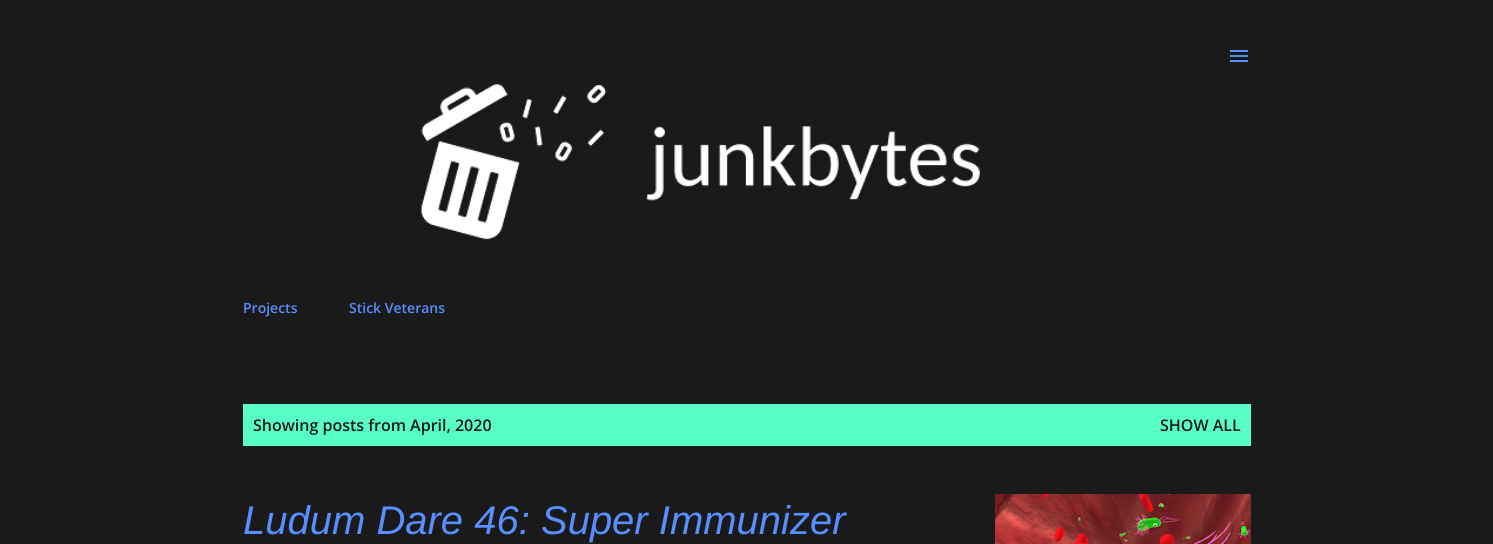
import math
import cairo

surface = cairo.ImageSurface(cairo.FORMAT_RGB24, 1493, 544)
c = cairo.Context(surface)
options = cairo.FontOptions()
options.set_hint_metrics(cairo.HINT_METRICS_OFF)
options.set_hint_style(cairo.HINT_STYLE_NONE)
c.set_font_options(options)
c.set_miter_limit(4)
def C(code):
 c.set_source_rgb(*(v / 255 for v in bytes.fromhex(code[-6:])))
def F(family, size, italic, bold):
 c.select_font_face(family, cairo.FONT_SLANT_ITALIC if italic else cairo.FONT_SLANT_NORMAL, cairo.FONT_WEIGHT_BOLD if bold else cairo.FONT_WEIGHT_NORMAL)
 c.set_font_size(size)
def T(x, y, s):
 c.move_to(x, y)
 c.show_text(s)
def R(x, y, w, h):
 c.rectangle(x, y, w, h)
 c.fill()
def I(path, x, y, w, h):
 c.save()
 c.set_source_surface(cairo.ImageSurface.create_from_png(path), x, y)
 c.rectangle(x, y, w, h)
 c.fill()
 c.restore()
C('1a1a1a')
c.paint()
I('1.png',1230,50,18,12)
I('2.png',420,83,560,157)
F('Open Sans SemiBold',14,0,0)
C('578fff')
T(243,313,'Projects')
T(349,313,'Stick Veterans')
C('57ffc6')
R(243,404,1008,42)
F('Open Sans SemiBold',16,0,0)
C('1a1a1a')
T(253,431,'Showing posts from April, 2020')
T(1160,431,'SHOW ALL')
F('Liberation Sans',40,1,0)
C('578fff')
T(243,534,'Ludum Dare 46: Super Immunizer')
I('3.png',995,494,256,50)
surface.write_to_png('o.png')
